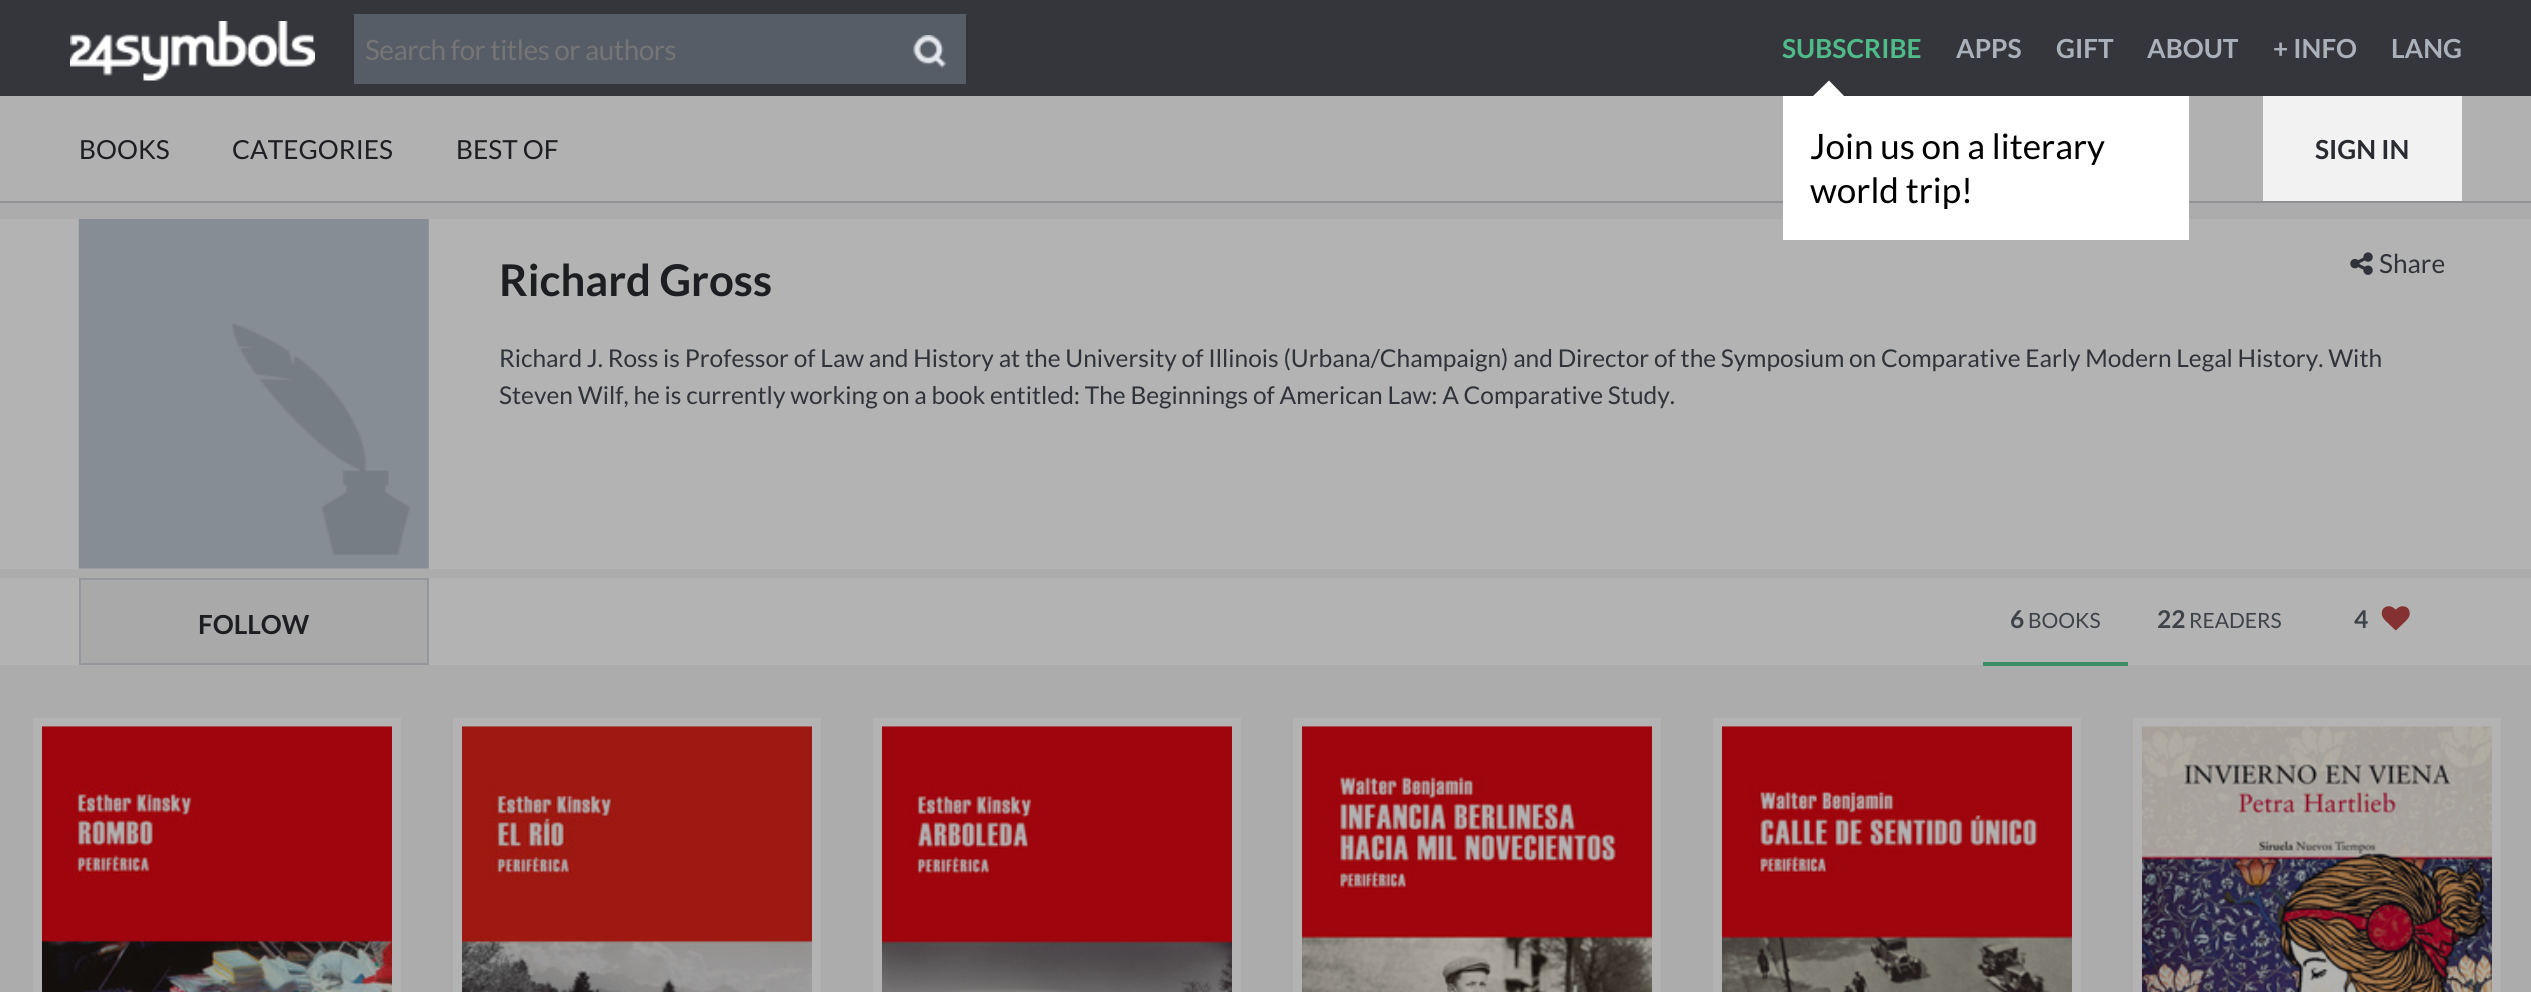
import math
import cairo

surface = cairo.ImageSurface(cairo.FORMAT_RGB24, 2531, 992)
c = cairo.Context(surface)
options = cairo.FontOptions()
options.set_hint_metrics(cairo.HINT_METRICS_OFF)
options.set_hint_style(cairo.HINT_STYLE_NONE)
c.set_font_options(options)
c.set_miter_limit(4)
def C(code):
 c.set_source_rgb(*(v / 255 for v in bytes.fromhex(code[-6:])))
def F(family, size, italic, bold):
 c.select_font_face(family, cairo.FONT_SLANT_ITALIC if italic else cairo.FONT_SLANT_NORMAL, cairo.FONT_WEIGHT_BOLD if bold else cairo.FONT_WEIGHT_NORMAL)
 c.set_font_size(size)
def T(x, y, s):
 c.move_to(x, y)
 c.show_text(s)
def L(x, y, s, letter, word):
 c.move_to(x, y)
 for ch in s:
  c.show_text(ch)
  c.rel_move_to(letter + word * (ch == ' '), 0)
def R(x, y, w, h):
 c.rectangle(x, y, w, h)
 c.fill()
def I(path, x, y, w, h):
 c.save()
 c.set_source_surface(cairo.ImageSurface.create_from_png(path), x, y)
 c.rectangle(x, y, w, h)
 c.fill()
 c.restore()
C('35363b')
c.paint()
I('1.png',70,21,245,60)
C('565d67')
R(354,14,612,70)
F('Lato',28,0,0)
C('757575')
L(365,60,'Search for titles or authors',-.5,0)
I('2.png',913,35,34,34)
F('Lato',26.25,0,1)
C('4ebb89')
T(1782,58,'SUBSCRIBE')
C('abb1bb')
T(1956,58,'APPS')
T(2056,58,'GIFT')
T(2147,58,'ABOUT')
T(2273,58,'+ INFO')
T(2391,58,'LANG')
C('b1b1b1')
R(0,96,2531,105)
C('909195')
R(0,201,2531,2)
C('acacac')
R(0,203,2531,789)
C('b3b3b3')
R(0,219,2531,350)
C('ffffff')
R(1783,96,406,144)
c.new_path()
c.move_to(1846,98)
c.line_to(1811,98)
c.line_to(1829,80.5)
c.close_path()
c.fill()
F('Lato',35,0,0)
C('000000')
T(1810,159,'Join us on a literary')
T(1810,203,'world trip!')
F('Lato',26.25,0,0)
C('1d1e22')
T(79,159,'BOOKS')
T(232,159,'CATEGORIES')
T(456,159,'BEST OF')
C('f2f2f2')
R(2263,96,199,105)
F('Lato',26.25,0,1)
C('292b30')
T(2315,159,'SIGN IN')
I('3.png',78,219,351,350)
F('Lato',43.75,0,1)
C('1d1e22')
T(499,296,'Richard Gross')
F('Lato',24.5,0,0)
C('303339')
T(499,367,'Richard J. Ross is Professor of Law and History at the University of Illinois (Urbana/Champaign) and Director of the Symposium on Comparative Early Modern Legal History. With')
T(499,404,'Steven Wilf, he is currently working on a book entitled: The Beginnings of American Law: A Comparative Study.')
I('4.png',2350,252,23,23)
F('Lato',26.25,0,0)
T(2379,273,'Share')
C('b3b3b3')
R(0,578,2531,87)
C('a9a9a9')
c.rectangle(80,579,348,85)
c.fill_preserve()
C('94979b')
c.stroke()
F('Lato',26.25,0,1)
C('1d1e22')
T(198,634,'FOLLOW')
C('3b8d67')
R(1983,662,145,4)
F('Lato',24.5,0,1)
C('3e4249')
T(2010,628,'6')
F('Lato',21,0,0)
T(2028,628,'BOOKS')
F('Lato',24.5,0,1)
T(2157,628,'22')
F('Lato',21,0,0)
T(2189,628,'READERS')
F('Lato',24.5,0,1)
T(2354,628,'4')
I('5.png',2381,606,29,25)
C('b3b3b3')
R(33,718,368,274)
I('6.png',42,726,350,266)
R(453,718,368,274)
I('7.png',462,726,350,266)
R(873,718,368,274)
I('8.png',882,726,350,266)
R(1293,718,368,274)
I('9.png',1302,726,350,266)
R(1713,718,368,274)
I('10.png',1722,726,350,266)
R(2133,718,368,274)
I('11.png',2142,726,350,266)
surface.write_to_png('o.png')
